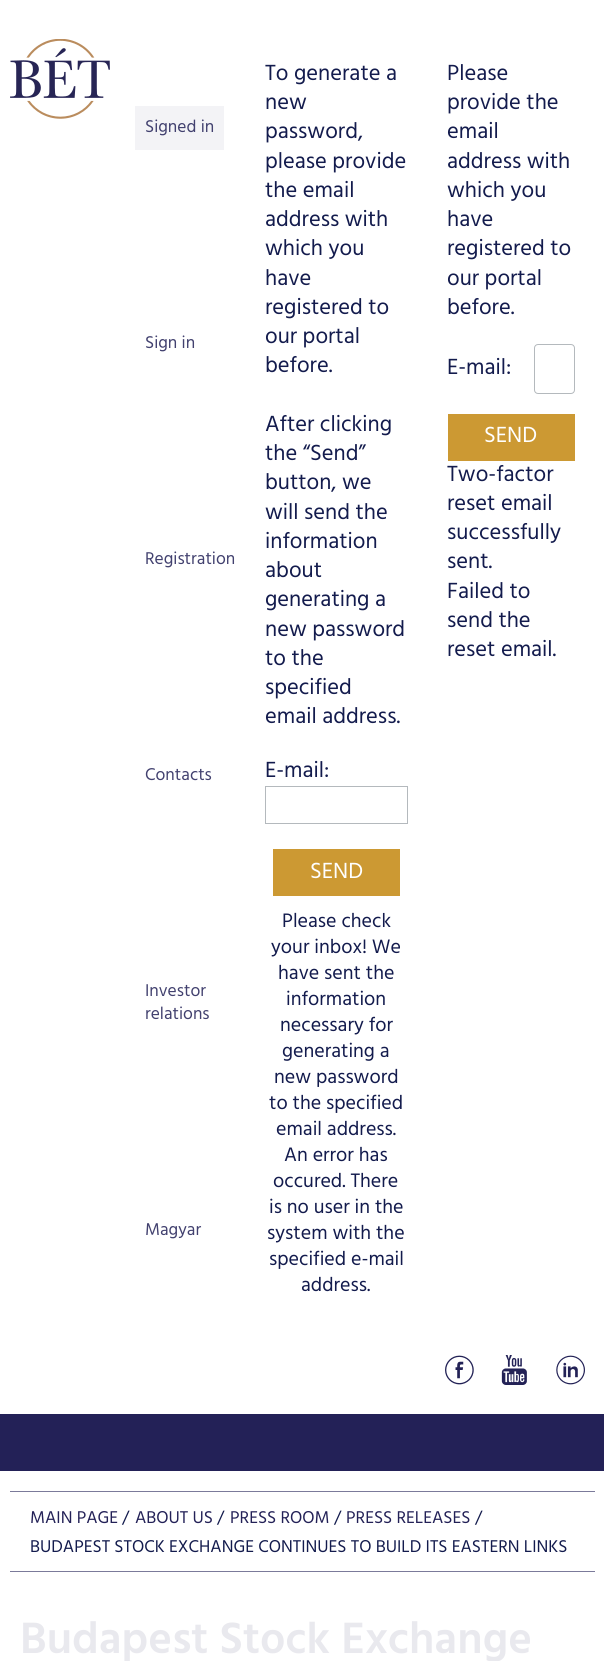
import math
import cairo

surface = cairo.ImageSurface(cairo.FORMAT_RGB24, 604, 1661)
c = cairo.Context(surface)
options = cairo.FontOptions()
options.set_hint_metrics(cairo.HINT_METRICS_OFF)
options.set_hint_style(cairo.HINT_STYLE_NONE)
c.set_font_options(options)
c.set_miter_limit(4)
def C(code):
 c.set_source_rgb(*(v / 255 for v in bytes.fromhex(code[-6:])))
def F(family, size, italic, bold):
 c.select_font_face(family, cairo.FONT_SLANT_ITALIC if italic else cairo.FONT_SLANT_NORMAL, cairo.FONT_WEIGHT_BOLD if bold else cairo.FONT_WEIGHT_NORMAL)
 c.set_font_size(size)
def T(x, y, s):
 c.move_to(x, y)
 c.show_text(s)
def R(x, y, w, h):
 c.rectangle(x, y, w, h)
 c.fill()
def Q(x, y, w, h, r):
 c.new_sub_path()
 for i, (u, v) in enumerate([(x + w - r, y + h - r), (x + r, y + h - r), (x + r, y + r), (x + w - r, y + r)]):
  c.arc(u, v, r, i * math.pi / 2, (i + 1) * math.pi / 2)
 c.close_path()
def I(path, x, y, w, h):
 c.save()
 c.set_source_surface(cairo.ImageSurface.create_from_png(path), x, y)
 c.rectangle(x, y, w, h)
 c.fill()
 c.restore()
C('ffffff')
c.paint()
I('1.png',10,39,100,80)
C('f3f3f6')
R(135,106,89,44)
F('Hind',17.5,0,0)
C('42416f')
T(145,132,'Signed in')
T(145,348,'Sign in')
T(145,564,'Registration')
T(145,780,'Contacts')
T(145,996,'Investor')
T(145,1019,'relations')
T(145,1235,'Magyar')
F('Hind',22.5,0,0)
C('131b4d')
T(265,80,'To generate a')
T(265,109,'new')
T(265,138,'password,')
T(265,168,'please provide')
T(265,197,'the email')
T(265,226,'address with')
T(265,255,'which you')
T(265,285,'have')
T(265,314,'registered to')
T(265,343,'our portal')
T(265,372,'before.')
T(265,431,'After clicking')
T(265,460,'the “Send”')
T(265,489,'button, we')
T(265,519,'will send the')
T(265,548,'information')
T(265,577,'about')
T(265,606,'generating a')
T(265,636,'new password')
T(265,665,'to the')
T(265,694,'specified')
T(265,723,'email address.')
T(265,777,'E-mail:')
c.rectangle(265.5,786.5,142,37)
C('b4b9bd')
c.set_line_width(1)
c.stroke()
C('cc9933')
R(273,849,127,47)
C('ffffff')
T(310,878,'SEND')
F('Hind',20,0,0)
C('131b4d')
T(282,927,'Please check')
T(271,953,'your inbox! We')
T(278,979,'have sent the')
T(286,1005,'information')
T(280,1031,'necessary for')
T(282,1057,'generating a')
T(274,1083,'new password')
T(269,1109,'to the specified')
T(276,1135,'email address.')
T(284,1161,'An error has')
T(273,1187,'occured. There')
T(269,1213,'is no user in the')
T(267,1239,'system with the')
T(269,1265,'specified e-mail')
T(301,1291,'address.')
F('Hind',22.5,0,0)
T(447,80,'Please')
T(447,109,'provide the')
T(447,138,'email')
T(447,168,'address with')
T(447,197,'which you')
T(447,226,'have')
T(447,255,'registered to')
T(447,285,'our portal')
T(447,314,'before.')
T(447,374,'E-mail:')
Q(534.5,344.5,40,49,3.5)
C('b4b9bd')
c.stroke()
C('cc9933')
R(448,414,127,47)
C('ffffff')
T(484,442,'SEND')
C('131b4d')
T(447,481,'Two-factor')
T(447,510,'reset email')
T(447,539,'successfully')
T(447,568,'sent.')
T(447,598,'Failed to')
T(447,627,'send the')
T(447,656,'reset email.')
I('2.png',445,1355,29,30)
I('3.png',501,1355,26,30)
I('4.png',556,1355,29,30)
C('232157')
R(0,1414,604,57)
C('7b7a9a')
R(10,1491,585,1)
R(10,1571,585,1)
F('Hind',17.5,0,0)
C('232157')
T(30,1523,'MAIN PAGE')
C('131b4d')
T(122,1523,'/')
C('232157')
T(135,1523,'ABOUT US')
C('131b4d')
T(217,1523,'/')
C('232157')
T(230,1523,'PRESS ROOM')
C('131b4d')
T(334,1523,'/')
C('232157')
T(346,1523,'PRESS RELEASES')
C('131b4d')
T(475,1523,'/')
T(30,1552,'BUDAPEST STOCK EXCHANGE CONTINUES TO BUILD ITS EASTERN LINKS')
F('Hind SemiBold',45,0,0)
C('e9e9ee')
T(20,1653,'Budapest Stock Exchange')
surface.write_to_png('o.png')
